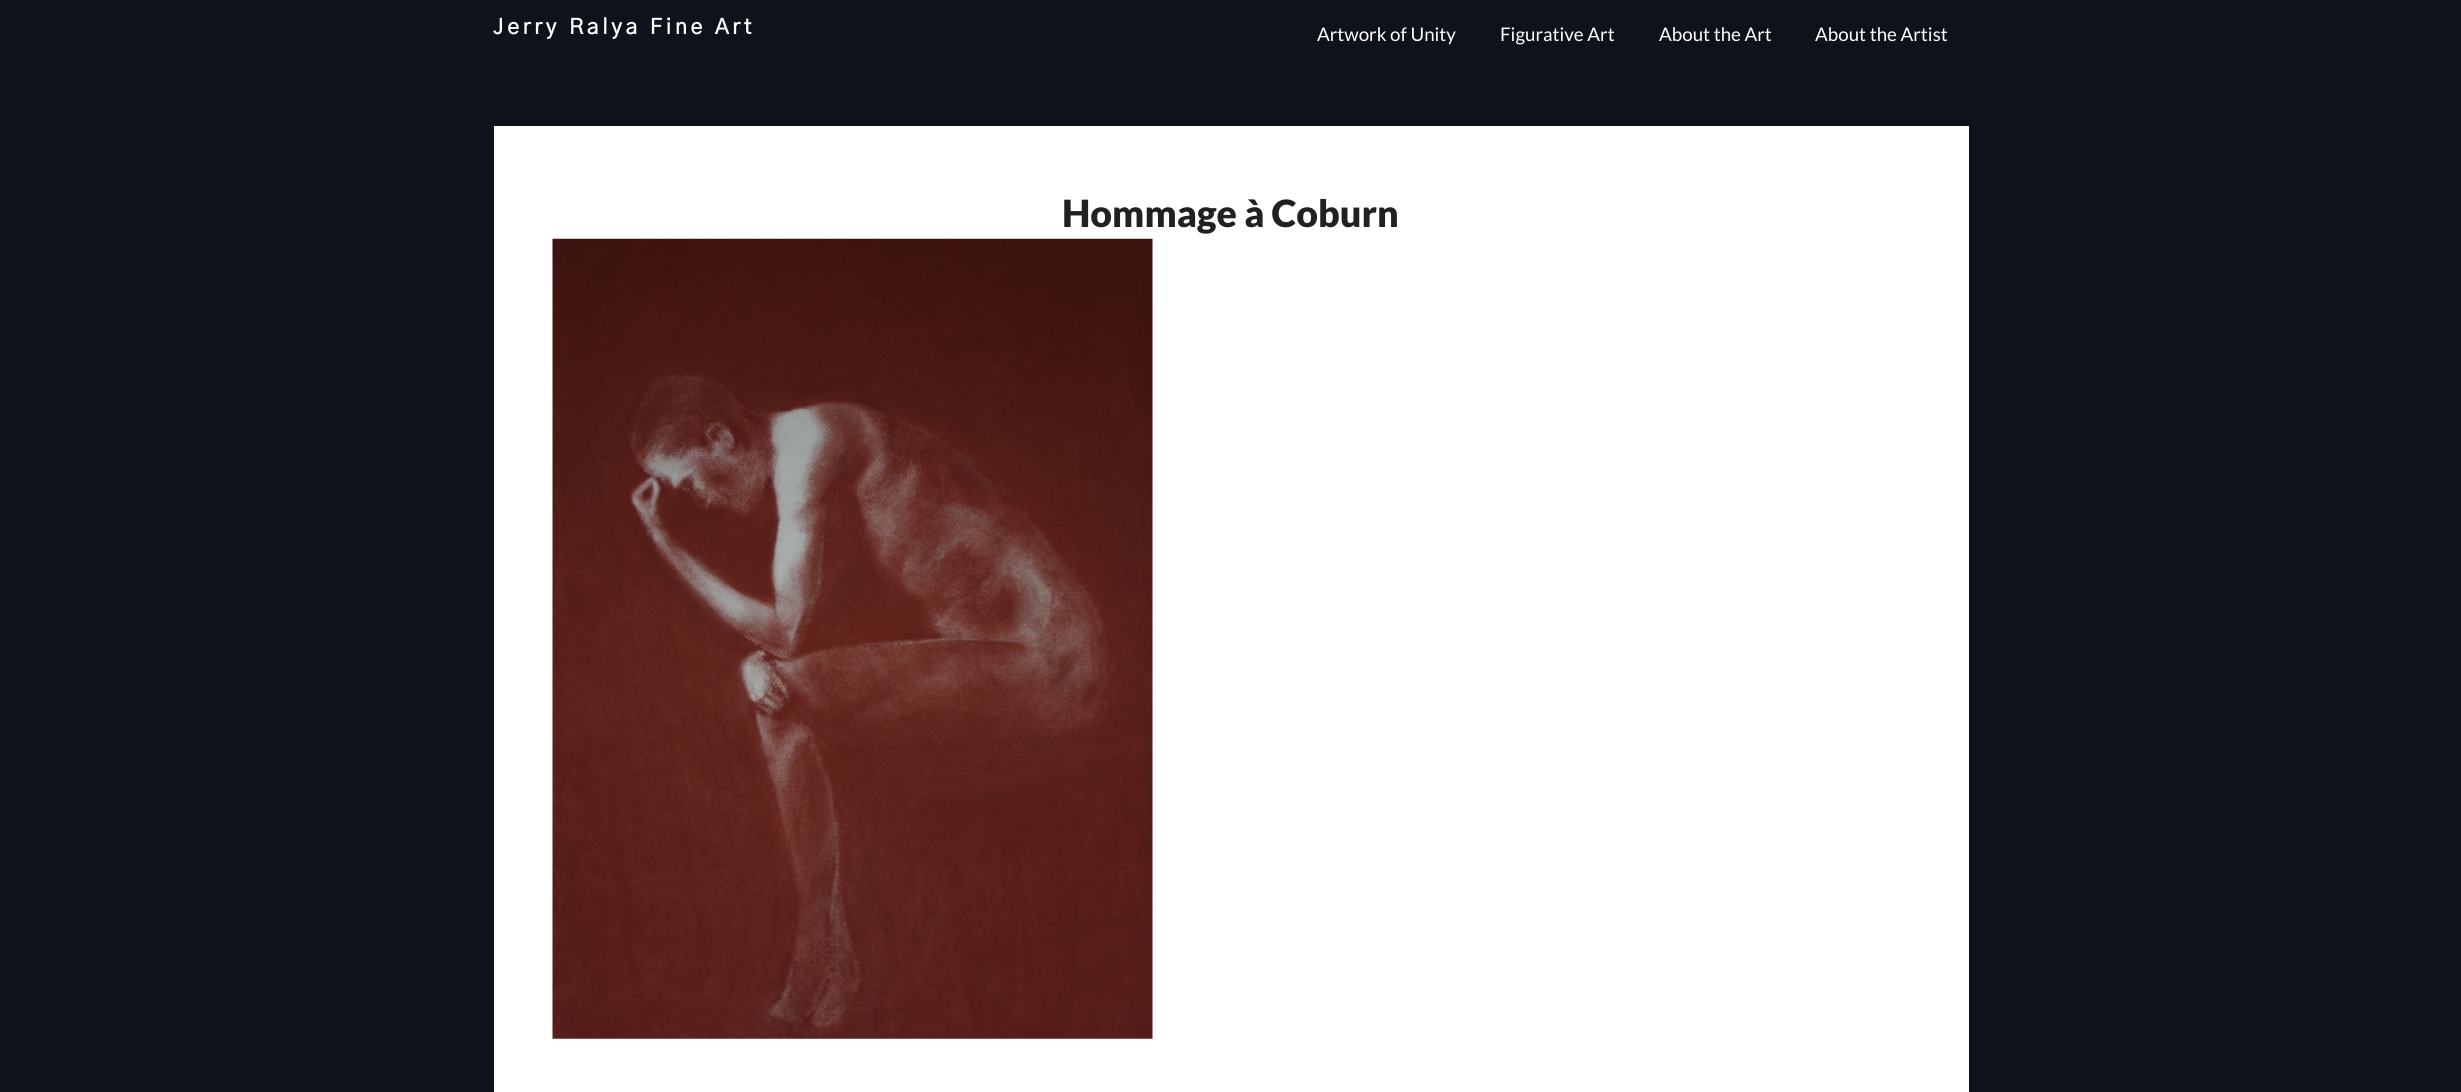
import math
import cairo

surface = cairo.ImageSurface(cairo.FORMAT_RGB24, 2461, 1092)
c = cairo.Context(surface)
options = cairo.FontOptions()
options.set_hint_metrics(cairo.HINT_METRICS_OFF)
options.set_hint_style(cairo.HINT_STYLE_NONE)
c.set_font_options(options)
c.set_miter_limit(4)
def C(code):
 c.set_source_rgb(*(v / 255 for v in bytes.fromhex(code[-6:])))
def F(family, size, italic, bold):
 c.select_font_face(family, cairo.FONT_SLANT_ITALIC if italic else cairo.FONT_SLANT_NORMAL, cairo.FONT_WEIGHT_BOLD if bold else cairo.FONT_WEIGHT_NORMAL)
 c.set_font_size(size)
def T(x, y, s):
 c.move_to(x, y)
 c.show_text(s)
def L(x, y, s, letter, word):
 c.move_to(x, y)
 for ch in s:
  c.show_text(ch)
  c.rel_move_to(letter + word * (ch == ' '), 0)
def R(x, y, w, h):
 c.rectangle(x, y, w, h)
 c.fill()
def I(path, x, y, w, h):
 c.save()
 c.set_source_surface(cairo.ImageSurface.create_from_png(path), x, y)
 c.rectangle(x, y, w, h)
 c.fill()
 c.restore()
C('0e121a')
c.paint()
F('Gothic A1',21.25,0,1)
C('ffffff')
L(493,34,'Jerry Ralya Fine Art',3.75,0)
F('Lato',18.75,0,0)
T(1317,41,'Artwork of Unity')
T(1500,41,'Figurative Art')
T(1659,41,'About the Art')
T(1815,41,'About the Artist')
R(494,126,1475,966)
F('Lato Black',37.5,0,0)
C('212121')
T(1062,227,'Hommage à Coburn')
I('1.png',552,238,601,801)
surface.write_to_png('o.png')
